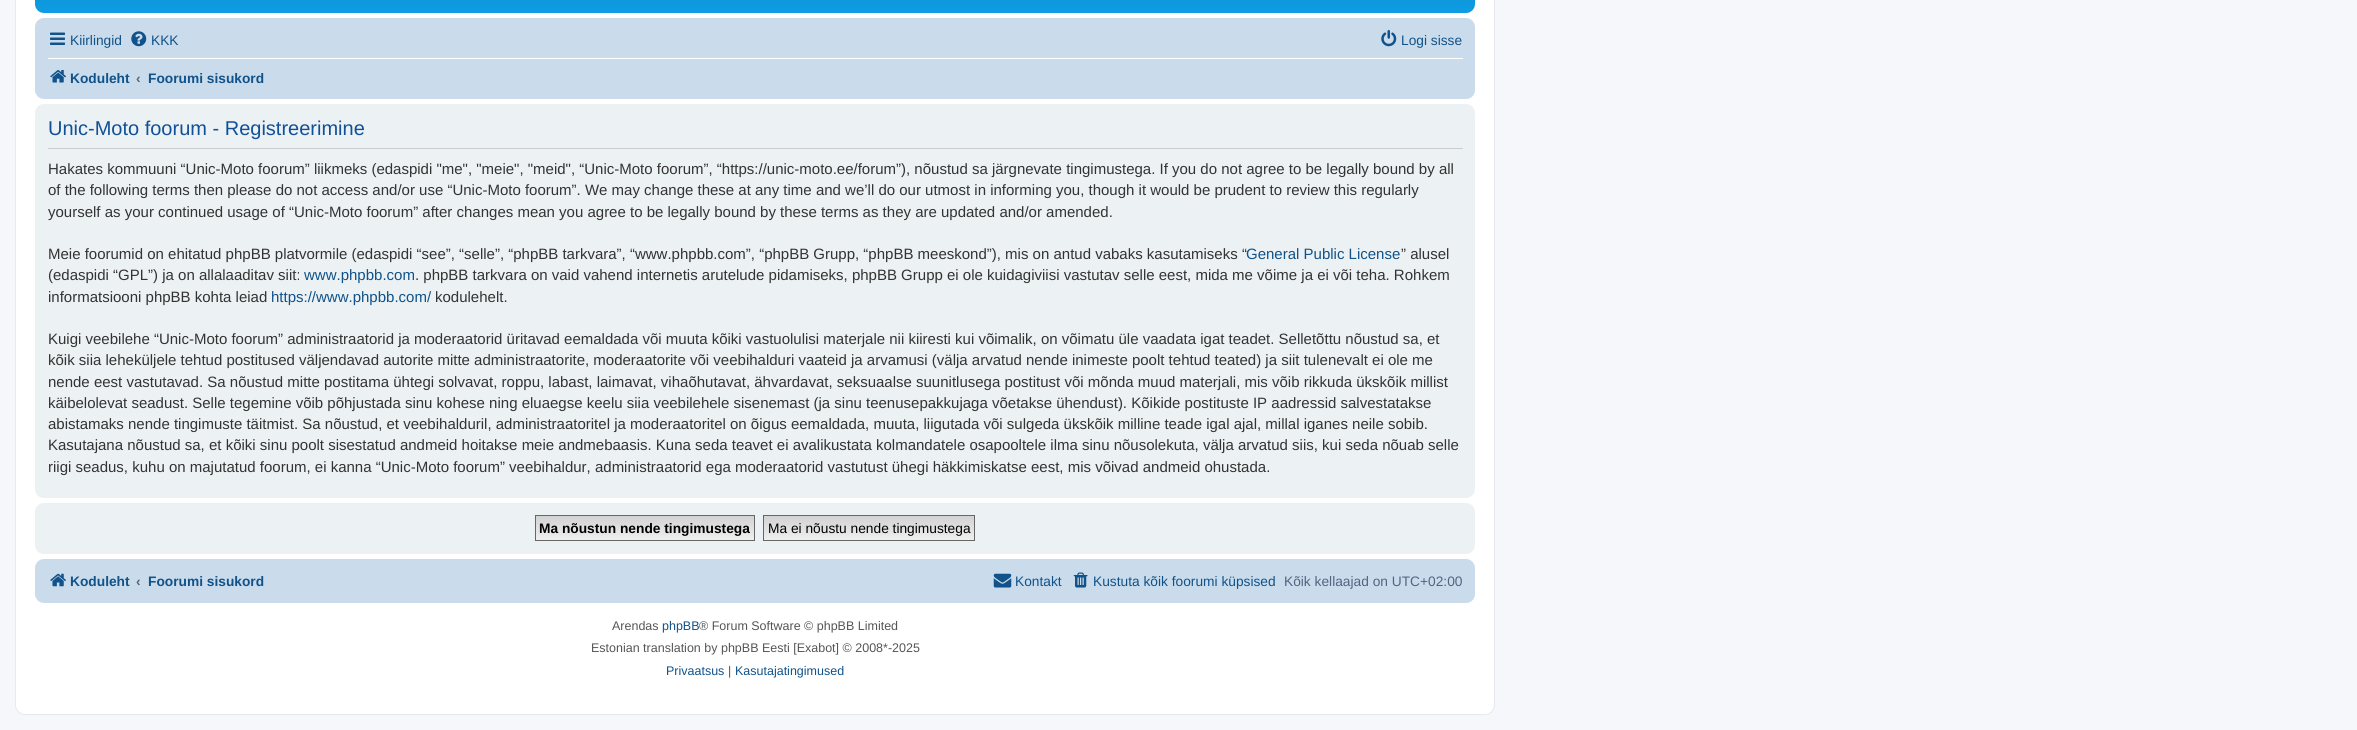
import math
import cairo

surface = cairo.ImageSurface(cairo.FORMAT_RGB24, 2357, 730)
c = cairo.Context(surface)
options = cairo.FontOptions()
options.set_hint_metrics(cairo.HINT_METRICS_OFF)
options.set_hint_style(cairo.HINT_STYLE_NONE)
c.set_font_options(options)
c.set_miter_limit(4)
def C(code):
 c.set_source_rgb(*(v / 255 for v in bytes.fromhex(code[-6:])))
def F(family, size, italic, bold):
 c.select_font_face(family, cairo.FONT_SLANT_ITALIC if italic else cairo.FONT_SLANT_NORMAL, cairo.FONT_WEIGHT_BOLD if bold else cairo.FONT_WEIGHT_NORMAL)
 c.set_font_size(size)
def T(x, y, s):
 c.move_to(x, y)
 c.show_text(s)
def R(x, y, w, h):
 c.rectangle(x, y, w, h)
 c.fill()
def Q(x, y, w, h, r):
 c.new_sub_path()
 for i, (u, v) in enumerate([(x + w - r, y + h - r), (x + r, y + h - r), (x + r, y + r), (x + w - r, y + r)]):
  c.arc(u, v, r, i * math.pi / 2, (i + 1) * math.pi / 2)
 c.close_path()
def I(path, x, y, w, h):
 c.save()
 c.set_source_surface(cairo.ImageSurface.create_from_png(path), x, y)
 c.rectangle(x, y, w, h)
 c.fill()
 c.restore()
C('f5f7fa')
c.paint()
C('ffffff')
Q(15.5,-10.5,1479,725,9.5)
c.fill_preserve()
C('e6e9ed')
c.set_line_width(1)
c.stroke()
gradient = cairo.LinearGradient(755,-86,755,29)
gradient.add_color_stop_rgba(0,0.416,0.808,1,1)
gradient.add_color_stop_rgba(.02,0,0.463,0.694,1)
gradient.add_color_stop_rgba(1,0.071,0.639,0.922,1)
c.set_source(gradient)
Q(35,-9,1440,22,9)
c.fill()
C('cadceb')
Q(35,18,1440,81,9)
c.fill()
I('1.png',50,32,15,13)
F('Liberation Sans',13.75,0,0)
C('105289')
T(70,45,'Kiirlingid')
I('2.png',131,31,16,16)
T(151,45,'KKK')
I('3.png',1381,30,16,17)
T(1401,45,'Logi sisse')
C('ffffff')
R(48,58,1415,1)
I('4.png',50,70,16,13)
F('Liberation Sans',13.75,0,1)
C('105289')
T(70,83,'Koduleht')
C('536482')
T(136,83,'‹')
C('105289')
T(148,83,'Foorumi sisukord')
C('ecf1f3')
Q(35,104,1440,394,9)
c.fill()
C('cccccc')
R(48,148,1415,1)
F('Liberation Sans',20,0,0)
C('115098')
T(48,135,'Unic-Moto foorum - Registreerimine')
F('Liberation Sans',15,0,0)
C('333333')
T(48,174,'Hakates kommuuni “Unic-Moto foorum” liikmeks (edaspidi "me", "meie", "meid", “Unic-Moto foorum”, “https://unic-moto.ee/forum”), nõustud sa järgnevate tingimustega. If you do not agree to be legally bound by all')
T(48,195,'of the following terms then please do not access and/or use “Unic-Moto foorum”. We may change these at any time and we’ll do our utmost in informing you, though it would be prudent to review this regularly')
T(48,217,'yourself as your continued usage of “Unic-Moto foorum” after changes mean you agree to be legally bound by these terms as they are updated and/or amended.')
T(48,259,'Meie foorumid on ehitatud phpBB platvormile (edaspidi “see”, “selle”, “phpBB tarkvara”, “www.phpbb.com”, “phpBB Grupp, “phpBB meeskond”), mis on antud vabaks kasutamiseks “')
C('105289')
T(1246,259,'General Public License')
C('333333')
T(1401,259,'” alusel')
T(48,280,'(edaspidi “GPL”) ja on allalaaditav siit:')
C('105289')
T(304,280,'www.phpbb.com')
C('333333')
T(415,280,'. phpBB tarkvara on vaid vahend internetis arutelude pidamiseks, phpBB Grupp ei ole kuidagiviisi vastutav selle eest, mida me võime ja ei või teha. Rohkem')
T(48,302,'informatsiooni phpBB kohta leiad')
C('105289')
T(271,302,'https://www.phpbb.com/')
C('333333')
T(435,302,'kodulehelt.')
T(48,344,'Kuigi veebilehe “Unic-Moto foorum” administraatorid ja moderaatorid üritavad eemaldada või muuta kõiki vastuolulisi materjale nii kiiresti kui võimalik, on võimatu üle vaadata igat teadet. Selletõttu nõustud sa, et')
T(48,365,'kõik siia leheküljele tehtud postitused väljendavad autorite mitte administraatorite, moderaatorite või veebihalduri vaateid ja arvamusi (välja arvatud nende inimeste poolt tehtud teated) ja siit tulenevalt ei ole me')
T(48,387,'nende eest vastutavad. Sa nõustud mitte postitama ühtegi solvavat, roppu, labast, laimavat, vihaõhutavat, ähvardavat, seksuaalse suunitlusega postitust või mõnda muud materjali, mis võib rikkuda ükskõik millist')
T(48,408,'käibelolevat seadust. Selle tegemine võib põhjustada sinu kohese ning eluaegse keelu siia veebilehele sisenemast (ja sinu teenusepakkujaga võetakse ühendust). Kõikide postituste IP aadressid salvestatakse')
T(48,429,'abistamaks nende tingimuste täitmist. Sa nõustud, et veebihalduril, administraatoritel ja moderaatoritel on õigus eemaldada, muuta, liigutada või sulgeda ükskõik milline teade igal ajal, millal iganes neile sobib.')
T(48,450,'Kasutajana nõustud sa, et kõiki sinu poolt sisestatud andmeid hoitakse meie andmebaasis. Kuna seda teavet ei avalikustata kolmandatele osapooltele ilma sinu nõusolekuta, välja arvatud siis, kui seda nõuab selle')
T(48,472,'riigi seadus, kuhu on majutatud foorum, ei kanna “Unic-Moto foorum” veebihaldur, administraatorid ega moderaatorid vastutust ühegi häkkimiskatse eest, mis võivad andmeid ohustada.')
C('ecf1f3')
Q(35,503,1440,51,9)
c.fill()
gradient = cairo.LinearGradient(645,516,645,540)
gradient.add_color_stop_rgba(0,0.824,0.824,0.824,1)
gradient.add_color_stop_rgba(1,0.937,0.937,0.937,1)
c.set_source(gradient)
R(536,516,218,24)
c.rectangle(535.5,515.5,219,25)
C('666666')
c.stroke()
F('Liberation Sans',13.75,0,1)
C('000000')
T(539,533,'Ma nõustun nende tingimustega')
gradient = cairo.LinearGradient(869,516,869,540)
gradient.add_color_stop_rgba(0,0.824,0.824,0.824,1)
gradient.add_color_stop_rgba(1,0.937,0.937,0.937,1)
c.set_source(gradient)
R(764,516,210,24)
c.rectangle(763.5,515.5,211,25)
C('666666')
c.stroke()
F('Liberation Sans',13.75,0,0)
C('000000')
T(768,533,'Ma ei nõustu nende tingimustega')
C('cadceb')
Q(35,559,1440,44,9)
c.fill()
I('5.png',50,573,16,14)
F('Liberation Sans',13.75,0,1)
C('105289')
T(70,586,'Koduleht')
C('536482')
T(136,586,'‹')
C('105289')
T(148,586,'Foorumi sisukord')
I('6.png',993,573,19,15)
F('Liberation Sans',13.75,0,0)
T(1015,586,'Kontakt')
I('7.png',1073,572,15,16)
T(1093,586,'Kustuta kõik foorumi küpsised')
C('536482')
T(1284,586,'Kõik kellaajad on UTC+02:00')
F('Liberation Sans',12.5,0,0)
C('555555')
T(612,630,'Arendas')
C('105289')
T(662,630,'phpBB')
C('555555')
T(699,630,'® Forum Software © phpBB Limited')
T(591,652,'Estonian translation by phpBB Eesti [Exabot] © 2008*-2025')
C('105289')
T(666,675,'Privaatsus')
C('555555')
T(728,675,'|')
C('105289')
T(735,675,'Kasutajatingimused')
surface.write_to_png('o.png')
